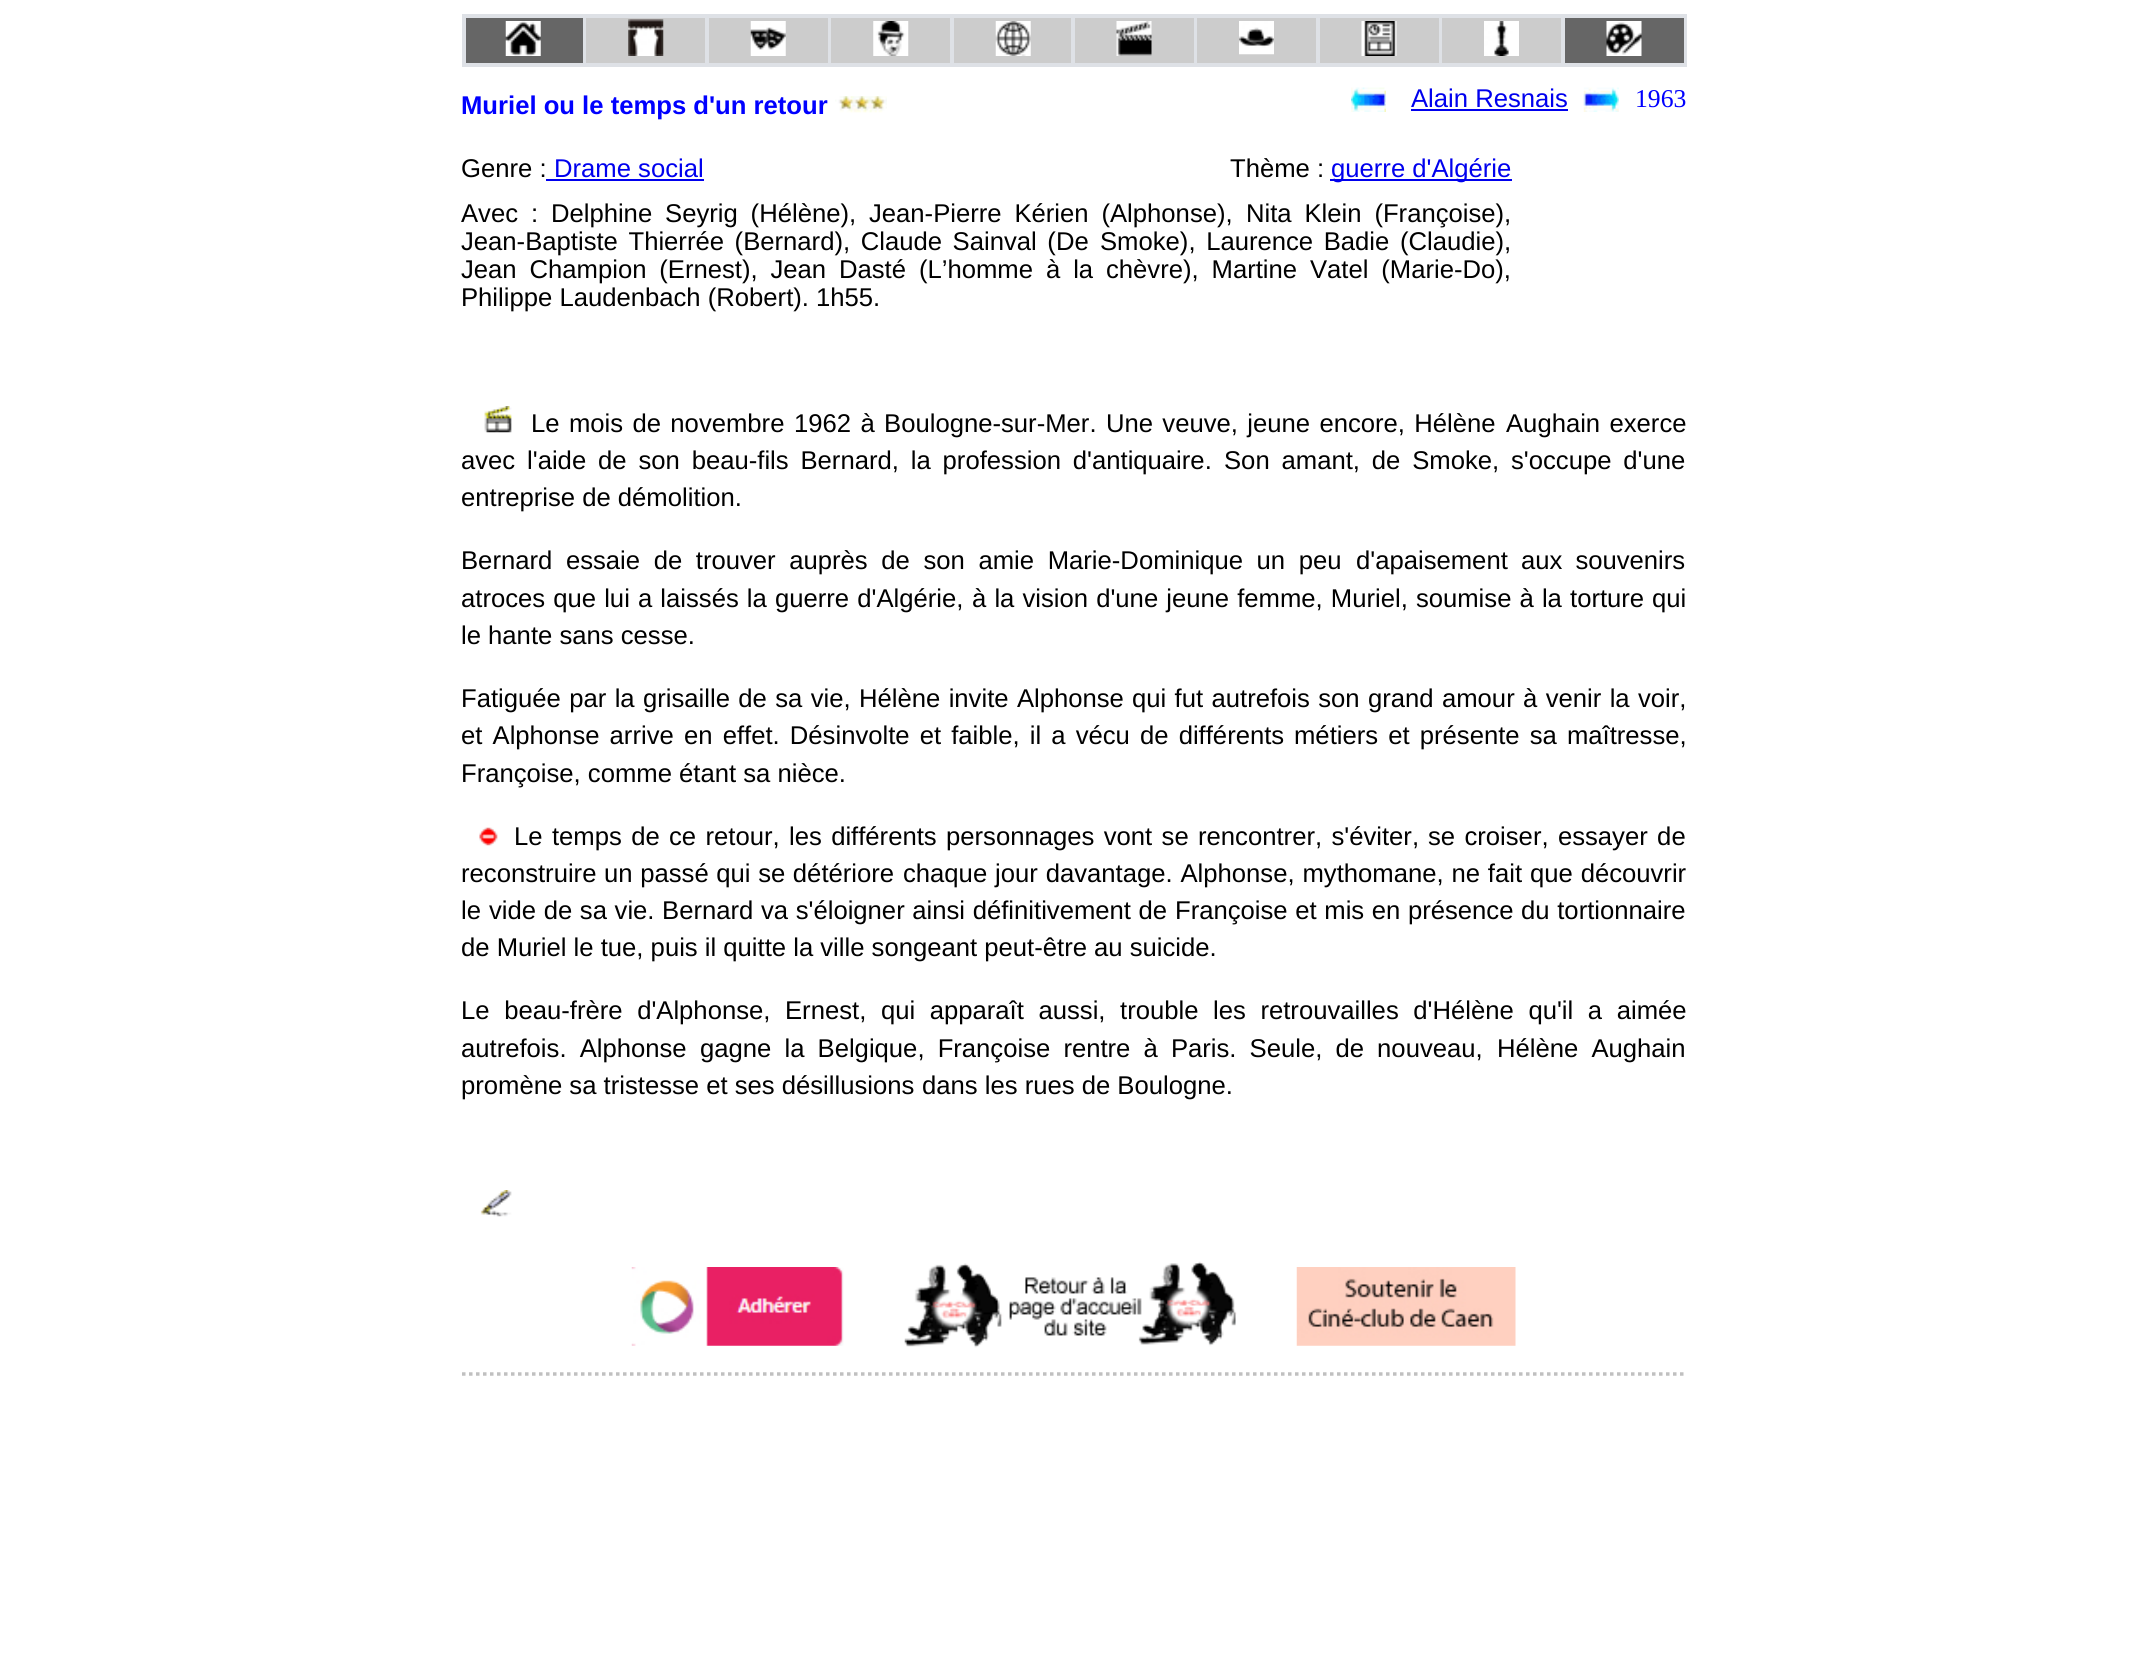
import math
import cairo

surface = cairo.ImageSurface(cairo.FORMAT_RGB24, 2146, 1656)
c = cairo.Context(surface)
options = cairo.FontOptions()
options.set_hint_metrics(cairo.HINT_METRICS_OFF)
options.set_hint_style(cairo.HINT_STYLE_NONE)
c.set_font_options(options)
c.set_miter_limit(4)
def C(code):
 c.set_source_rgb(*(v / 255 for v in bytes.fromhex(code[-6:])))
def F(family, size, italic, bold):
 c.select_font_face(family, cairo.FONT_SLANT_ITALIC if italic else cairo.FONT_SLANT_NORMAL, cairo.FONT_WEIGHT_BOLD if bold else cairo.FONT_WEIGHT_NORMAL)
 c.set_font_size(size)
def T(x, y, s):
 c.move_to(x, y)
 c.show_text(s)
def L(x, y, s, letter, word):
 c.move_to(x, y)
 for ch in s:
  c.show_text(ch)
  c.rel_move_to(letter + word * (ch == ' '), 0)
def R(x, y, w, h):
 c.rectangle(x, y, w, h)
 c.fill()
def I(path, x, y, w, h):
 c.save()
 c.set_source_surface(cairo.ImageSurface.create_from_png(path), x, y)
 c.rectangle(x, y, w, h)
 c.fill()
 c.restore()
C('ffffff')
c.paint()
C('dee1e6')
R(462,14,1225,53)
C('666666')
R(466,18,117,45)
I('1.png',505,21,36,35)
C('cccccc')
R(586,18,119,45)
I('2.png',628,19,36,37)
R(709,18,119,45)
I('3.png',750,21,36,35)
R(831,18,119,45)
I('4.png',873,21,36,35)
R(954,18,117,45)
I('5.png',995,21,36,35)
R(1075,18,119,45)
I('6.png',1116,21,36,35)
R(1197,18,119,45)
I('7.png',1239,21,35,34)
R(1320,18,119,45)
I('8.png',1361,21,36,35)
R(1442,18,119,45)
I('9.png',1484,21,35,35)
C('666666')
R(1565,18,119,45)
I('10.png',1606,21,36,35)
F('Liberation Sans',25.65,0,1)
C('0000ff')
T(461,114,'Muriel ou le temps d\'un retour')
I('11.png',835,96,52,17)
I('12.png',1351,87,35,25)
F('Liberation Sans',25.65,0,0)
C('0000ee')
T(1411,107,'Alain Resnais')
R(1411,109,157,2)
I('13.png',1583,87,36,25)
F('Liberation Serif',25.65,0,0)
C('0000ff')
T(1635,107,'1963')
F('Liberation Sans',25.65,0,0)
C('000000')
T(461,177,'Genre :')
C('0000ee')
T(554,177,'Drame social')
R(546,179,158,2)
C('000000')
T(1230,177,'Thème :')
C('0000ee')
R(1330,179,182,2)
T(1331,177,'guerre d\'Algérie')
C('000000')
L(461,222,'Avec : Delphine Seyrig (Hélène), Jean-Pierre Kérien (Alphonse),',0,5.75)
L(1246,222,'Nita Klein (Françoise),',0,5.75)
L(461,250,'Jean-Baptiste Thierrée (Bernard), Claude Sainval (De',0,3.5)
L(1100,250,'Smoke), Laurence Badie (Claudie),',0,3.5)
L(461,278,'Jean Champion (Ernest), Jean Dasté (L’homme',0,5.75)
L(1046,278,'à la chèvre), Martine Vatel (Marie-Do),',0,5.75)
T(461,306,'Philippe Laudenbach (Robert). 1h55.')
I('14.png',484,406,28,27)
L(531,432,'Le mois de novembre',0,2.25)
L(794,432,'1962 à Boulogne-sur-Mer. Une veuve, jeune encore, Hélène',0,2.25)
L(1506,432,'Aughain exerce',0,2.25)
L(461,469,'avec l\'aide de son beau-fils Bernard, la profession d\'antiquaire.',0,4.75)
L(1224,469,'Son amant, de Smoke, s\'occupe d\'une',0,4.75)
T(461,506,'entreprise de démolition.')
L(461,569,'Bernard essaie de trouver auprès de son amie Marie-Dominique un peu',0,6.5)
L(1356,569,'d\'apaisement aux souvenirs',0,6)
L(461,607,'atroces que lui a laissés la guerre d\'Algérie,',0,1)
L(972,607,'à la vision d\'une jeune femme, Muriel, soumise à la torture',0,1)
T(1652,607,'qui')
T(461,644,'le hante sans cesse.')
L(461,707,'Fatiguée par la grisaille de sa vie, Hélène invite Alphonse',0,1.25)
L(1132,707,'qui fut autrefois son grand amour à venir la voir,',0,1.25)
L(461,744,'et Alphonse arrive',0,3)
L(684,744,'en effet. Désinvolte et faible, il a vécu de différents',0,3)
L(1294,744,'métiers et présente sa maîtresse,',0,3)
T(461,782,'Françoise, comme étant sa nièce.')
I('15.png',479,827,19,19)
L(514,845,'Le temps de',0,2.25)
L(669,845,'ce retour, les différents personnages vont se rencontrer, s\'éviter,',0,2.25)
L(1428,845,'se croiser, essayer de',0,2.25)
L(461,882,'reconstruire un passé qui se détériore',0,.5)
L(903,882,'chaque jour davantage. Alphonse, mythomane, ne fait que découvrir',0,.75)
T(461,919,'le')
L(489,919,'vide de sa vie. Bernard va s\'éloigner ainsi définitivement de',0,.5)
L(1175,919,'Françoise et mis en présence du tortionnaire',0,.5)
T(461,956,'de Muriel le tue, puis il quitte la ville songeant peut-être au suicide.')
L(461,1019,'Le beau-frère d\'Alphonse, Ernest, qui apparaît aussi, trouble',0,7.5)
L(1213,1019,'les retrouvailles d\'Hélène qu\'il a aimée',0,7.5)
L(461,1057,'autrefois. Alphonse',0,6)
L(700,1057,'gagne la Belgique, Françoise rentre à Paris. Seule, de nouveau,',0,6)
L(1497,1057,'Hélène Aughain',0,6)
T(461,1094,'promène sa tristesse et ses désillusions')
T(922,1094,'dans les rues de Boulogne.')
I('16.png',480,1190,32,27)
I('17.png',631,1267,213,79)
I('18.png',904,1261,333,87)
I('19.png',1296,1267,220,79)
c.new_path()
c.move_to(462,1374)
c.line_to(1687,1374)
C('c0c0c0')
c.set_line_width(3.5)
c.set_dash([3.5,3.5])
c.stroke()
surface.write_to_png('o.png')
